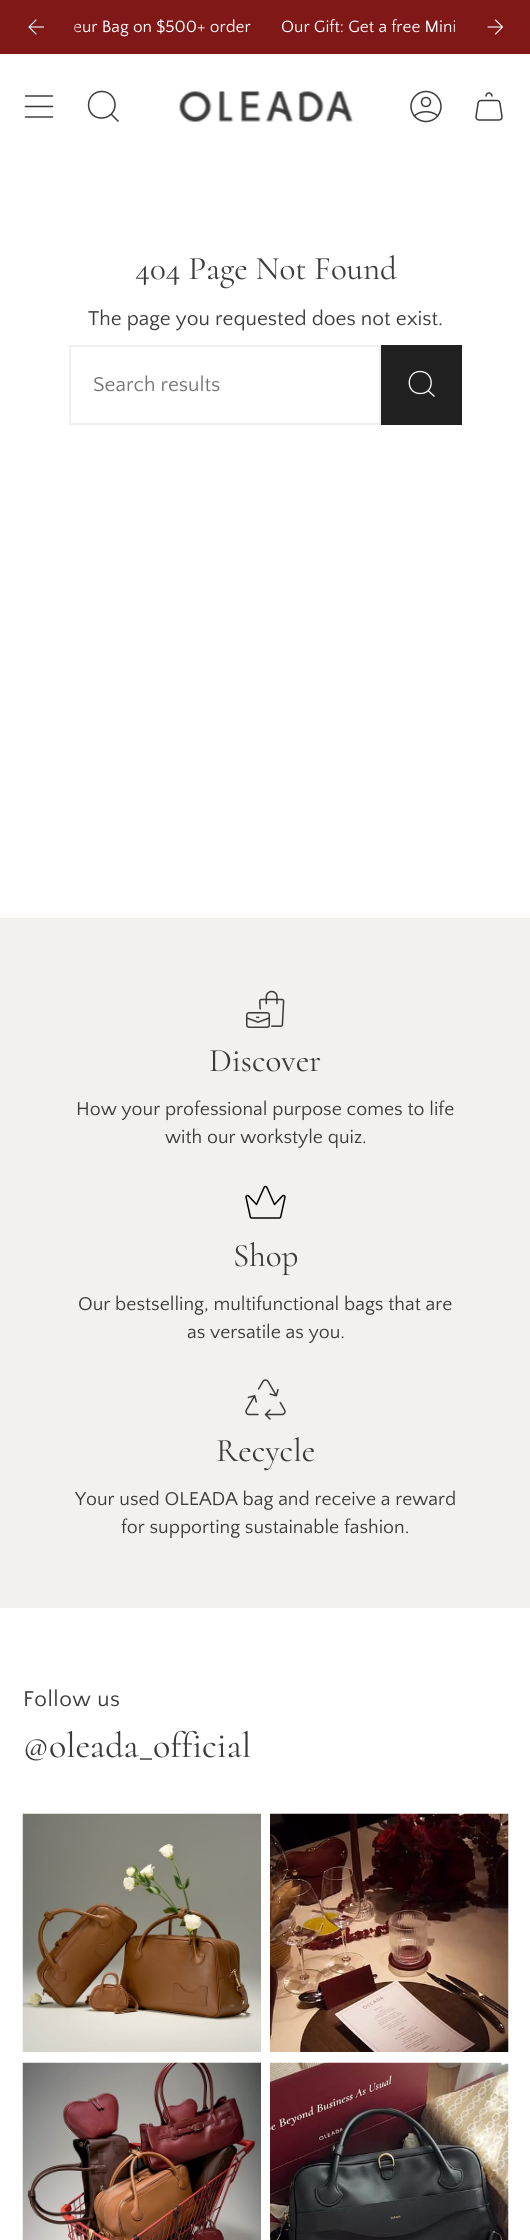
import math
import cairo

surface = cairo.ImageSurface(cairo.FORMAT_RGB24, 530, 2240)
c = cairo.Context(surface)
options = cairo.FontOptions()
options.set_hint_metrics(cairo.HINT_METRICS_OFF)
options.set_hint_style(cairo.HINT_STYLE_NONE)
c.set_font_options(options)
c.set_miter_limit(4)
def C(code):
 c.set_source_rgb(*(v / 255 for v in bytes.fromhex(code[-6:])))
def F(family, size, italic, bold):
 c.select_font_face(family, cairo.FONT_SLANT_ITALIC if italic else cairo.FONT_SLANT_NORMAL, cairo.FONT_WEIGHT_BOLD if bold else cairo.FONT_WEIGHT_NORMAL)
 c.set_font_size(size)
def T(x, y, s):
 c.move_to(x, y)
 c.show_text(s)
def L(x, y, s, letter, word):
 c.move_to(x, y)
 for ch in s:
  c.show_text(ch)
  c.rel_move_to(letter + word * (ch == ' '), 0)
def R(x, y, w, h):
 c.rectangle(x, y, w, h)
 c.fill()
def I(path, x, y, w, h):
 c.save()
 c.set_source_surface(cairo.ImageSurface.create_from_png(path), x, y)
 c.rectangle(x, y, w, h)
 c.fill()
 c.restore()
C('ffffff')
c.paint()
C('801818')
R(0,0,530,54)
c.new_path()
c.move_to(43.5,27)
c.line_to(29,27)
c.move_to(29,27)
c.line_to(36,20)
c.move_to(29,27)
c.line_to(36,34)
C('ffffff')
c.set_line_width(1.1)
c.set_line_cap(cairo.LINE_CAP_ROUND)
c.set_line_join(cairo.LINE_JOIN_ROUND)
c.stroke()
F('Quattrocento Sans',17.25,0,0)
T(73,32,'eur Bag on $500+ order')
T(281,32,'Our Gift: Get a free Mini')
gradient = cairo.LinearGradient(23,27,80,27)
gradient.add_color_stop_rgba(.8,0.502,0.094,0.094,1)
gradient.add_color_stop_rgba(1,0.502,0.094,0.094,0)
c.set_source(gradient)
R(73,23,7,10)
gradient = cairo.LinearGradient(509,27,452,27)
gradient.add_color_stop_rgba(.8,0.502,0.094,0.094,1)
gradient.add_color_stop_rgba(1,0.502,0.094,0.094,0)
c.set_source(gradient)
R(453,20,2,12)
c.new_path()
c.move_to(488,27)
c.line_to(502.5,27)
c.move_to(502.5,27)
c.line_to(495.5,20)
c.move_to(502.5,27)
c.line_to(495.5,34)
C('ffffff')
c.stroke()
c.new_path()
c.move_to(25.5,96)
c.line_to(52.5,96)
c.move_to(25.5,106.5)
c.line_to(52.5,106.5)
c.move_to(25.5,117)
c.line_to(52.5,117)
C('3b3b3b')
c.set_line_width(1.5)
c.stroke()
c.new_path()
c.move_to(102,91.5)
c.curve_to(114.5,91.5,120,108,109.5,115.5)
c.curve_to(107,117.5,104,118,101,118)
c.curve_to(84,117.5,84.5,91.5,102,91.5)
c.close_path()
c.move_to(111,114)
c.line_to(118.5,121.5)
c.set_line_cap(cairo.LINE_CAP_BUTT)
c.set_line_join(cairo.LINE_JOIN_MITER)
c.stroke()
I('1.png',179,91,174,31)
I('2.png',410,90,32,33)
I('3.png',475,92,28,29)
F('Cormorant',33,0,0)
T(135,279,'404 Page Not Found')
F('Quattrocento Sans',21,0,0)
T(88,325,'The page you requested does not exist.')
c.rectangle(70,346,310,78)
C('f0f0f0')
c.set_line_width(2)
c.stroke()
C('757575')
T(93,391,'Search results')
C('212121')
R(381,345,81,80)
c.new_path()
c.move_to(420,371.5)
c.curve_to(435,371.5,435,394.5,419.5,393.5)
c.curve_to(405.5,393,406,371.5,420,371.5)
c.close_path()
c.move_to(428,390.5)
c.line_to(434.5,396.5)
C('ffffff')
c.set_line_width(1.3)
c.stroke()
C('f3f0ed')
R(0,918,530,690)
I('4.png',246,990,39,38)
F('Cormorant',33,0,0)
C('3b3b3b')
T(209,1071,'Discover')
F('Quattrocento Sans',19.5,0,0)
T(76,1115,'How your professional purpose comes to life')
T(165,1143,'with our workstyle quiz.')
I('5.png',245,1185,41,34)
F('Cormorant',33,0,0)
T(233,1266,'Shop')
F('Quattrocento Sans',19.5,0,0)
T(78,1310,'Our bestselling, multifunctional bags that are')
T(187,1338,'as versatile as you.')
I('6.png',245,1379,41,41)
F('Cormorant',33,0,0)
T(216,1461,'Recycle')
F('Quattrocento Sans',19.5,0,0)
T(75,1505,'Your used OLEADA bag and receive a reward')
T(121,1533,'for supporting sustainable fashion.')
F('Quattrocento Sans',22.5,0,0)
L(23,1706,'Follow us',.5,0)
F('Cormorant',36,0,0)
T(23,1757,'@oleada_official')
I('7.png',22,1813,239,239)
I('8.png',270,1813,239,239)
I('9.png',22,2062,239,178)
I('10.png',270,2062,239,178)
surface.write_to_png('o.png')
